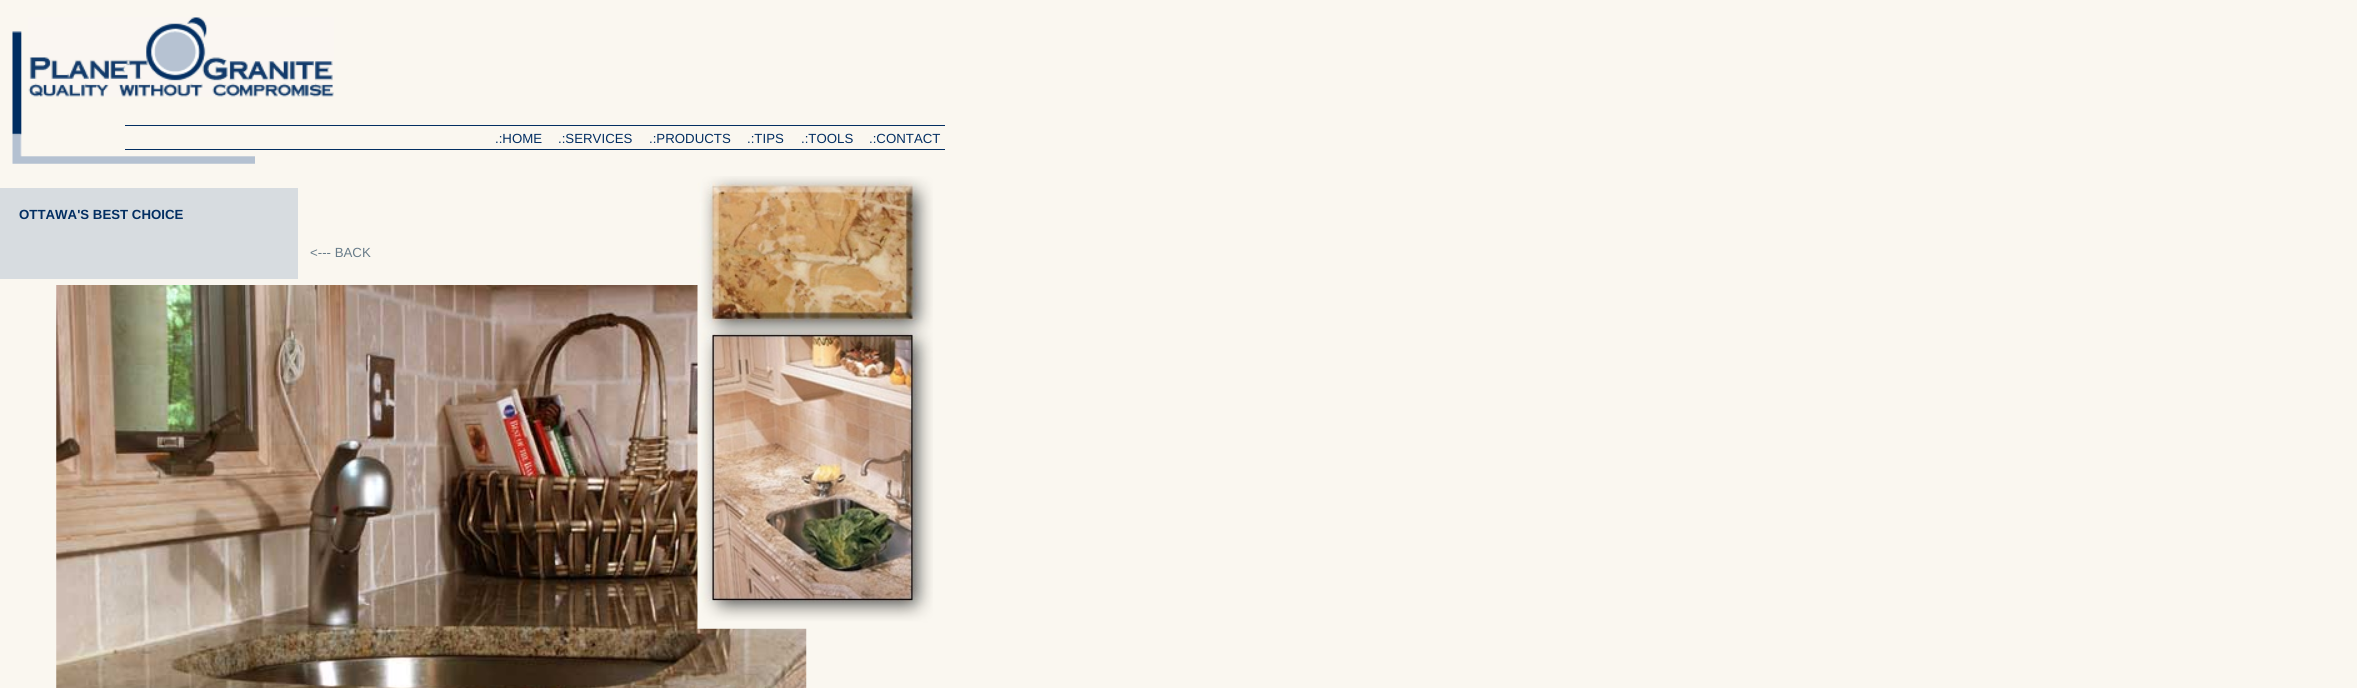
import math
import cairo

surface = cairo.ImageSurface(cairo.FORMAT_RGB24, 2357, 688)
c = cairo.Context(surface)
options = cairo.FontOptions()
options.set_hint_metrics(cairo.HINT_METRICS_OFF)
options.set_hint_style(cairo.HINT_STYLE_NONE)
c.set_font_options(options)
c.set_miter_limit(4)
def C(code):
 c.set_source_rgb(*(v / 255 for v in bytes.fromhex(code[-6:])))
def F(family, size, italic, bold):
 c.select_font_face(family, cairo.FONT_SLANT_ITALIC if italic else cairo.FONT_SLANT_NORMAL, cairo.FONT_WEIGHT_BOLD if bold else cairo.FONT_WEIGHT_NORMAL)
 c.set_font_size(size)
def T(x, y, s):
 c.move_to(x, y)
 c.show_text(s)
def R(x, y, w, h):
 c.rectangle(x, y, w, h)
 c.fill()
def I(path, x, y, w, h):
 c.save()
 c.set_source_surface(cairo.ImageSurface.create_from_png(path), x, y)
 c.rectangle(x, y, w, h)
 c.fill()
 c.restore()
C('faf7f0')
c.paint()
I('1.png',28,17,306,80)
C('022e62')
R(125,125,820,1)
R(125,149,820,1)
I('2.png',12,31,243,133)
F('Liberation Sans',13.25,0,0)
T(495,143,'.:HOME')
T(558,143,'.:SERVICES')
T(649,143,'.:PRODUCTS')
T(747,143,'.:TIPS')
T(801,143,'.:TOOLS')
T(869,143,'.:CONTACT')
C('d7dce0')
R(0,188,298,91)
F('Liberation Sans',13.25,0,1)
C('022e62')
T(19,219,'OTTAWA\'S BEST CHOICE')
F('Liberation Sans',13.25,0,0)
C('687c89')
T(310,257,'<--- BACK')
I('3.png',56,285,751,403)
I('4.png',697,176,236,453)
surface.write_to_png('o.png')
